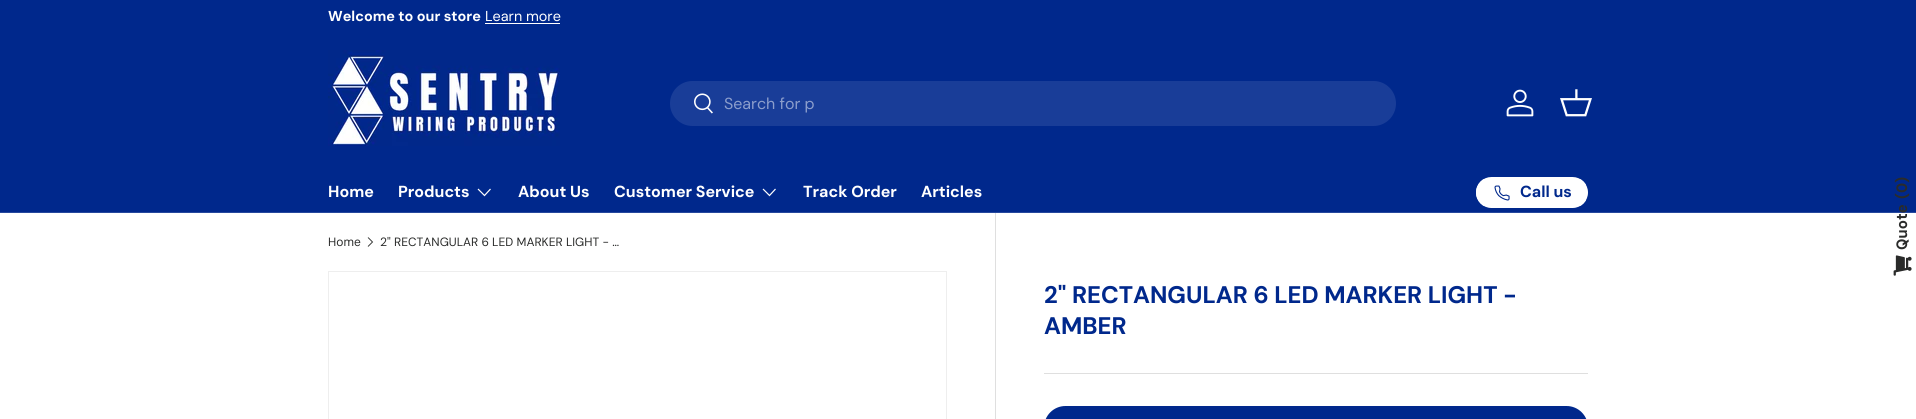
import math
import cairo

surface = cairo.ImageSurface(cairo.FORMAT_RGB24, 1916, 419)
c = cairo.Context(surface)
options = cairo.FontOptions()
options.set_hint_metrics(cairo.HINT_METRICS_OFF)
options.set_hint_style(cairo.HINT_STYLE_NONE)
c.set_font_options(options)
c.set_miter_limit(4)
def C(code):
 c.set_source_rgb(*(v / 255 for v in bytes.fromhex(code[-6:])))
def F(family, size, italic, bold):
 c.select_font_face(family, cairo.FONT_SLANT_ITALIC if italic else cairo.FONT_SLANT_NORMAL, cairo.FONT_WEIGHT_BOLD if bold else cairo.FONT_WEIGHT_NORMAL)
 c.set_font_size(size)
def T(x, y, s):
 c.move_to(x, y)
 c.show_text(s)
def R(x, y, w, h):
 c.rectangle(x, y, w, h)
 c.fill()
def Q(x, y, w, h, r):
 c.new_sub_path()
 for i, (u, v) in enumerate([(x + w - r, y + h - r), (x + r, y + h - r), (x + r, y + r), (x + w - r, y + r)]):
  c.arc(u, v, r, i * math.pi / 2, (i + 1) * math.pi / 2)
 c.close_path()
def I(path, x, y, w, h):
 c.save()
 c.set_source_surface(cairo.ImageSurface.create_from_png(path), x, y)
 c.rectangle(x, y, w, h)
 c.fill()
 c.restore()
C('ffffff')
c.paint()
C('00288c')
R(0,0,1916,212)
F('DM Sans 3',14.4,0,1)
C('ffffff')
T(328,21,'Welcome to our store')
F('DM Sans 3',14.4,0,0)
T(485,21,'Learn more')
R(485,23,75,1)
C('26489d')
R(0,212,1916,1)
I('1.png',328,50,232,96)
C('193d98')
Q(670,81,726,45,22.5)
c.fill()
I('2.png',694,93,19,21)
F('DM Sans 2',16,0,0)
C('8c9ecc')
T(724,109,'Search for p')
I('3.png',1506,89,28,28)
I('4.png',1560,89,32,28)
F('DM Sans 2',16,0,1)
C('ffffff')
T(328,197,'Home')
T(398,197,'Products')
c.new_path()
c.move_to(490.5,189)
c.line_to(484.5,195.5)
c.line_to(478,189)
c.set_line_width(1.2)
c.stroke()
T(518,197,'About Us')
T(614,197,'Customer Service')
c.new_path()
c.move_to(775.5,189)
c.line_to(769.5,195.5)
c.line_to(763,189)
c.stroke()
T(803,197,'Track Order')
T(921,197,'Articles')
c.save()
Q(1476,177,112,31,15.5)
c.clip()
gradient = cairo.LinearGradient(1268,154,1580,231)
gradient.add_color_stop_rgba(.6,0.894,0.91,0.953,1)
gradient.add_color_stop_rgba(.6,1,1,1,1)
gradient.add_color_stop_rgba(1,1,1,1,1)
c.set_source(gradient)
R(1476,179,110,27)
c.restore()
Q(1477,178,110,29,14.5)
c.set_line_width(2)
c.stroke()
I('5.png',1494,185,16,16)
C('00288c')
T(1520,197,'Call us')
F('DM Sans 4',15,0,1)
C('2a2b2a')
c.save()
c.translate(1907,183)
c.rotate(-90 * math.pi / 180)
T(0,0,')')
c.restore()
c.save()
c.translate(1907,193)
c.rotate(-90 * math.pi / 180)
T(0,0,'0')
c.restore()
c.save()
c.translate(1907,199)
c.rotate(-90 * math.pi / 180)
T(0,0,'(')
c.restore()
c.save()
c.translate(1907,250)
c.rotate(-90 * math.pi / 180)
T(0,0,'Quote')
c.restore()
I('6.png',1893,255,19,21)
F('DM Sans',12,0,0)
T(328,246,'Home')
c.new_path()
c.move_to(368,237.5)
c.line_to(372.5,242)
c.line_to(368,246.5)
c.set_line_width(.9)
c.stroke()
T(380,246,'2" RECTANGULAR 6 LED MARKER LIGHT - …')
c.rectangle(328.5,271.5,618,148)
C('eeeeee')
c.set_line_width(1)
c.stroke()
C('dfdfdf')
R(995,213,1,206)
F('DM Sans',24,0,1)
C('00288c')
T(1044,303,'2" RECTANGULAR 6 LED MARKER LIGHT -')
T(1044,334,'AMBER')
C('dfdfdf')
R(1044,373,544,1)
C('00288c')
Q(1044,406,544,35,21.5)
c.fill()
surface.write_to_png('o.png')
